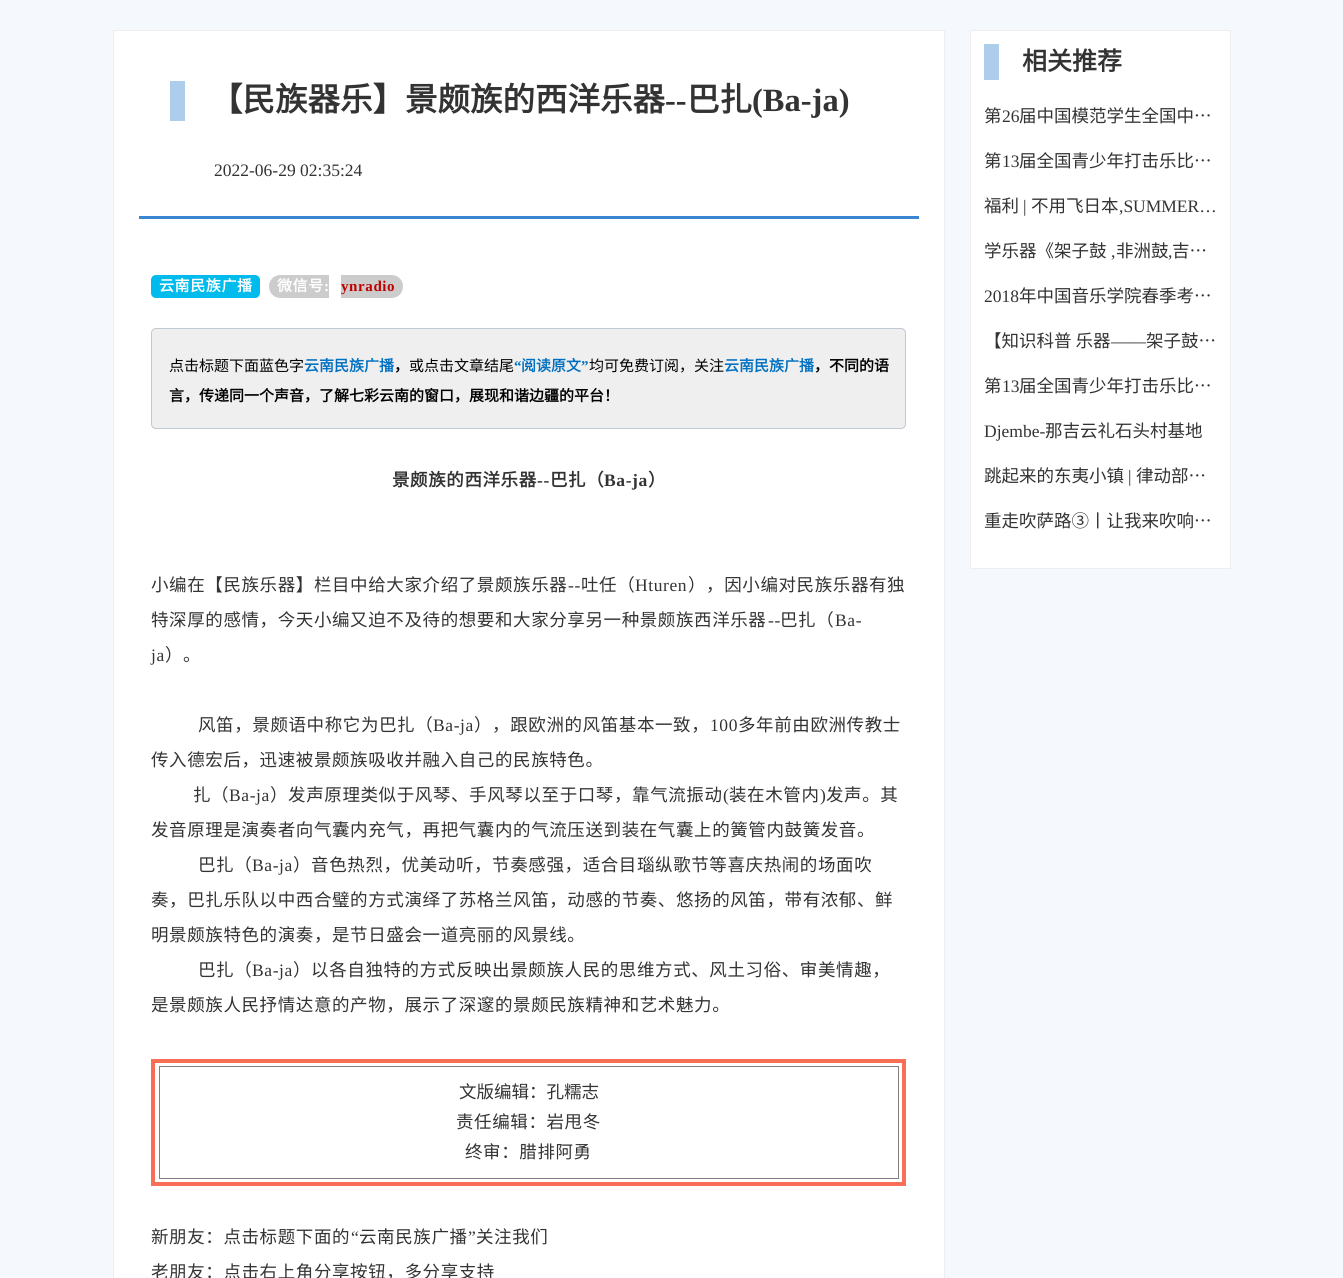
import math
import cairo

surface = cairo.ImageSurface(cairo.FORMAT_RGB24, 1343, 1278)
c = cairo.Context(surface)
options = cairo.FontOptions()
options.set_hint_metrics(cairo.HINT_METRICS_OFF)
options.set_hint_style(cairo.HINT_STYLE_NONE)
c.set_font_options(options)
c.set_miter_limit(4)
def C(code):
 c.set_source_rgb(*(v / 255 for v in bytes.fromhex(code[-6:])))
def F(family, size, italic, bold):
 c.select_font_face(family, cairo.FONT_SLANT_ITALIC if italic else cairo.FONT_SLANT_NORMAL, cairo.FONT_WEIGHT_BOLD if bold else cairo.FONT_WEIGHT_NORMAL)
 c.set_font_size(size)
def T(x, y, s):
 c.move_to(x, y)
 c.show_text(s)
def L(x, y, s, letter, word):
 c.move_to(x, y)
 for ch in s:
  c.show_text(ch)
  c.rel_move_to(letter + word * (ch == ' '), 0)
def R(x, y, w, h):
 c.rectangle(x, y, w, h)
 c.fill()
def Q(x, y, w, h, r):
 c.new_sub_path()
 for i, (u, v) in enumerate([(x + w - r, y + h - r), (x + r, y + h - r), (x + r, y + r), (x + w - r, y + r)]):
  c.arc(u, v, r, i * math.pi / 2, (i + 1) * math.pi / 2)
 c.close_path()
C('f5f9fd')
c.paint()
C('ffffff')
c.rectangle(113.5,30.5,831,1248)
c.fill_preserve()
C('eeeeee')
c.set_line_width(1)
c.stroke()
C('aecded')
R(170,81,15,40)
F('Noto Sans CJK SC',32.5,0,1)
C('333333')
T(210,111,'【民族器乐】景颇族的西洋乐器')
F('Liberation Serif',32.5,0,1)
T(665,111,'--')
F('Noto Sans CJK SC',32.5,0,1)
T(687,111,'巴扎')
F('Liberation Serif',32.5,0,1)
T(752,111,'(Ba-ja)')
F('Liberation Serif',17.5,0,0)
T(214,176,'2022-06-29 02:35:24')
C('3985d2')
R(139,216,780,3)
C('00bbec')
Q(151,275,109,23,5)
c.fill()
F('Noto Sans CJK SC',15,0,1)
C('ffffff')
L(159,291,'云南民族广播',.6,0)
C('cccccc')
c.new_path()
c.move_to(280.5,275)
c.line_to(329,275)
c.line_to(329,298)
c.line_to(280.5,298)
c.curve_to(274,298,269,293,269,286.5)
c.curve_to(269,280,274,275,280.5,275)
c.close_path()
c.fill()
C('ffffff')
L(277,291,'微信号',.6,0)
F('Liberation Serif',15,0,1)
L(324,291,':',.6,0)
C('cccccc')
c.new_path()
c.move_to(341,275)
c.line_to(391.5,275)
c.curve_to(398,275,403,280,403,286.5)
c.curve_to(403,293,398,298,391.5,298)
c.line_to(341,298)
c.close_path()
c.fill()
C('c00000')
L(341,291,'ynradio',.6,0)
C('efefef')
Q(151.5,328.5,754,100,4.5)
c.fill_preserve()
C('c0c8d1')
c.stroke()
F('Noto Sans CJK SC',15,0,0)
C('000000')
T(169,371,'点击标题下面蓝色字')
F('Noto Sans CJK SC',15,0,1)
C('0070c0')
T(304,371,'云南民族广播')
F('Noto Sans CJK SC',15,0,0)
C('000000')
T(409,371,'或点击文章结尾')
F('Liberation Serif',15,0,1)
C('0070c0')
T(514,371,'“')
F('Noto Sans CJK SC',15,0,1)
T(521,371,'阅读原文')
F('Liberation Serif',15,0,1)
T(581,371,'”')
F('Noto Sans CJK SC',15,0,0)
C('000000')
T(589,371,'均可免费订阅，关注')
F('Noto Sans CJK SC',15,0,1)
C('0070c0')
T(724,371,'云南民族广播')
C('000000')
T(814,371,'，不同的语')
T(394,371,'，')
T(169,401,'言，传递同一个声音，了解七彩云南的窗口，展现和谐边疆的平台！')
F('Noto Sans CJK SC',17.5,0,1)
C('333333')
L(392,486,'景颇族的西洋乐器',.6,0)
F('Liberation Serif',17.5,0,1)
L(537,486,'--',.6,0)
F('Noto Sans CJK SC',17.5,0,1)
L(550,486,'巴扎（',.6,0)
F('Liberation Serif',17.5,0,1)
L(604,486,'Ba-ja',.6,0)
F('Noto Sans CJK SC',17.5,0,1)
L(648,486,'）',.6,0)
F('Noto Sans CJK SC',17.5,0,0)
L(151,591,'小编在【民族乐器】栏目中给大家介绍了景颇族乐器',.6,0)
F('Liberation Serif',17.5,0,0)
L(568,591,'--',.6,0)
F('Noto Sans CJK SC',17.5,0,0)
L(581,591,'吐任（',.6,0)
F('Liberation Serif',17.5,0,0)
L(635,591,'Hturen',.6,0)
F('Noto Sans CJK SC',17.5,0,0)
L(688,591,'），因小编对民族乐器有独',.6,0)
L(151,626,'特深厚的感情，今天小编又迫不及待的想要和大家分享另一种景颇族西洋乐器',.6,0)
F('Liberation Serif',17.5,0,0)
L(768,626,'--',.6,0)
F('Noto Sans CJK SC',17.5,0,0)
L(780,626,'巴扎（',.6,0)
F('Liberation Serif',17.5,0,0)
L(835,626,'Ba-',.6,0)
L(151,661,'ja',.6,0)
F('Noto Sans CJK SC',17.5,0,0)
L(165,661,'）。',.6,0)
L(198,731,'风笛，景颇语中称它为巴扎（',.6,0)
F('Liberation Serif',17.5,0,0)
L(433,731,'Ba-ja',.6,0)
F('Noto Sans CJK SC',17.5,0,0)
L(474,731,'），跟欧洲的风笛基本一致，',.6,0)
F('Liberation Serif',17.5,0,0)
L(710,731,'100',.6,0)
F('Noto Sans CJK SC',17.5,0,0)
L(738,731,'多年前由欧洲传教士',.6,0)
L(151,766,'传入德宏后，迅速被景颇族吸收并融入自己的民族特色。',.6,0)
L(193,801,'扎（',.6,0)
F('Liberation Serif',17.5,0,0)
L(229,801,'Ba-ja',.6,0)
F('Noto Sans CJK SC',17.5,0,0)
L(270,801,'）发声原理类似于风琴、手风琴以至于口琴，靠气流振动',.6,0)
F('Liberation Serif',17.5,0,0)
L(723,801,'(',.6,0)
F('Noto Sans CJK SC',17.5,0,0)
L(729,801,'装在木管内',.6,0)
F('Liberation Serif',17.5,0,0)
L(820,801,')',.6,0)
F('Noto Sans CJK SC',17.5,0,0)
L(826,801,'发声。其',.6,0)
L(151,836,'发音原理是演奏者向气囊内充气，再把气囊内的气流压送到装在气囊上的簧管内鼓簧发音。',.6,0)
L(198,871,'巴扎（',.6,0)
F('Liberation Serif',17.5,0,0)
L(252,871,'Ba-ja',.6,0)
F('Noto Sans CJK SC',17.5,0,0)
L(293,871,'）音色热烈，优美动听，节奏感强，适合目瑙纵歌节等喜庆热闹的场面吹',.6,0)
L(151,906,'奏，巴扎乐队以中西合璧的方式演绎了苏格兰风笛，动感的节奏、悠扬的风笛，带有浓郁、鲜',.6,0)
L(151,941,'明景颇族特色的演奏，是节日盛会一道亮丽的风景线。',.6,0)
L(198,976,'巴扎（',.6,0)
F('Liberation Serif',17.5,0,0)
L(252,976,'Ba-ja',.6,0)
F('Noto Sans CJK SC',17.5,0,0)
L(293,976,'）以各自独特的方式反映出景颇族人民的思维方式、风土习俗、审美情趣，',.6,0)
L(151,1011,'是景颇族人民抒情达意的产物，展示了深邃的景颇民族精神和艺术魅力。',.6,0)
c.rectangle(153,1061,751,123)
C('f96e57')
c.set_line_width(4)
c.stroke()
c.rectangle(159.5,1066.5,739,112)
C('808080')
c.set_line_width(1)
c.stroke()
C('333333')
T(459,1098,'文版编辑：孔糯志')
L(456,1128,'责任编辑：岩甩冬',.6,0)
L(465,1158,'终审：腊排阿勇',.6,0)
L(151,1243,'新朋友：点击标题下面的',.6,0)
F('Liberation Serif',17.5,0,0)
L(351,1243,'“',.6,0)
F('Noto Sans CJK SC',17.5,0,0)
L(359,1243,'云南民族广播',.6,0)
F('Liberation Serif',17.5,0,0)
L(468,1243,'”',.6,0)
F('Noto Sans CJK SC',17.5,0,0)
L(476,1243,'关注我们',.6,0)
L(151,1278,'老朋友：点击右上角分享按钮，多分享支持',.6,0)
C('ffffff')
c.rectangle(970.5,30.5,260,538)
c.fill_preserve()
C('eeeeee')
c.stroke()
C('aecded')
R(984,44,15,36)
F('Noto Sans CJK SC',25,0,1)
C('333333')
T(1022,70,'相关推荐')
F('Noto Sans CJK SC',17.5,0,0)
T(984,122,'第')
F('Liberation Serif',17.5,0,0)
T(1002,122,'26')
F('Noto Sans CJK SC',17.5,0,0)
T(1019,122,'届中国模范学生全国中…')
T(984,167,'第')
F('Liberation Serif',17.5,0,0)
T(1002,167,'13')
F('Noto Sans CJK SC',17.5,0,0)
T(1019,167,'届全国青少年打击乐比…')
T(984,212,'福利')
F('Liberation Serif',17.5,0,0)
T(1023,212,'|')
F('Noto Sans CJK SC',17.5,0,0)
T(1031,212,'不用飞日本')
F('Liberation Serif',17.5,0,0)
T(1119,212,',SUMMER…')
F('Noto Sans CJK SC',17.5,0,0)
T(984,257,'学乐器《架子鼓')
F('Liberation Serif',17.5,0,0)
T(1111,257,',')
F('Noto Sans CJK SC',17.5,0,0)
T(1116,257,'非洲鼓')
F('Liberation Serif',17.5,0,0)
T(1168,257,',')
F('Noto Sans CJK SC',17.5,0,0)
T(1172,257,'吉…')
F('Liberation Serif',17.5,0,0)
T(984,302,'2018')
F('Noto Sans CJK SC',17.5,0,0)
T(1019,302,'年中国音乐学院春季考…')
T(984,347,'【知识科普 乐器')
F('Liberation Serif',17.5,0,0)
T(1111,347,'——')
F('Noto Sans CJK SC',17.5,0,0)
T(1146,347,'架子鼓…')
T(984,392,'第')
F('Liberation Serif',17.5,0,0)
T(1002,392,'13')
F('Noto Sans CJK SC',17.5,0,0)
T(1019,392,'届全国青少年打击乐比…')
F('Liberation Serif',17.5,0,0)
T(984,437,'Djembe-')
F('Noto Sans CJK SC',17.5,0,0)
T(1045,437,'那吉云礼石头村基地')
T(984,482,'跳起来的东夷小镇')
F('Liberation Serif',17.5,0,0)
T(1128,482,'|')
F('Noto Sans CJK SC',17.5,0,0)
T(1136,482,'律动部…')
T(984,527,'重走吹萨路③丨让我来吹响…')
surface.write_to_png('o.png')
